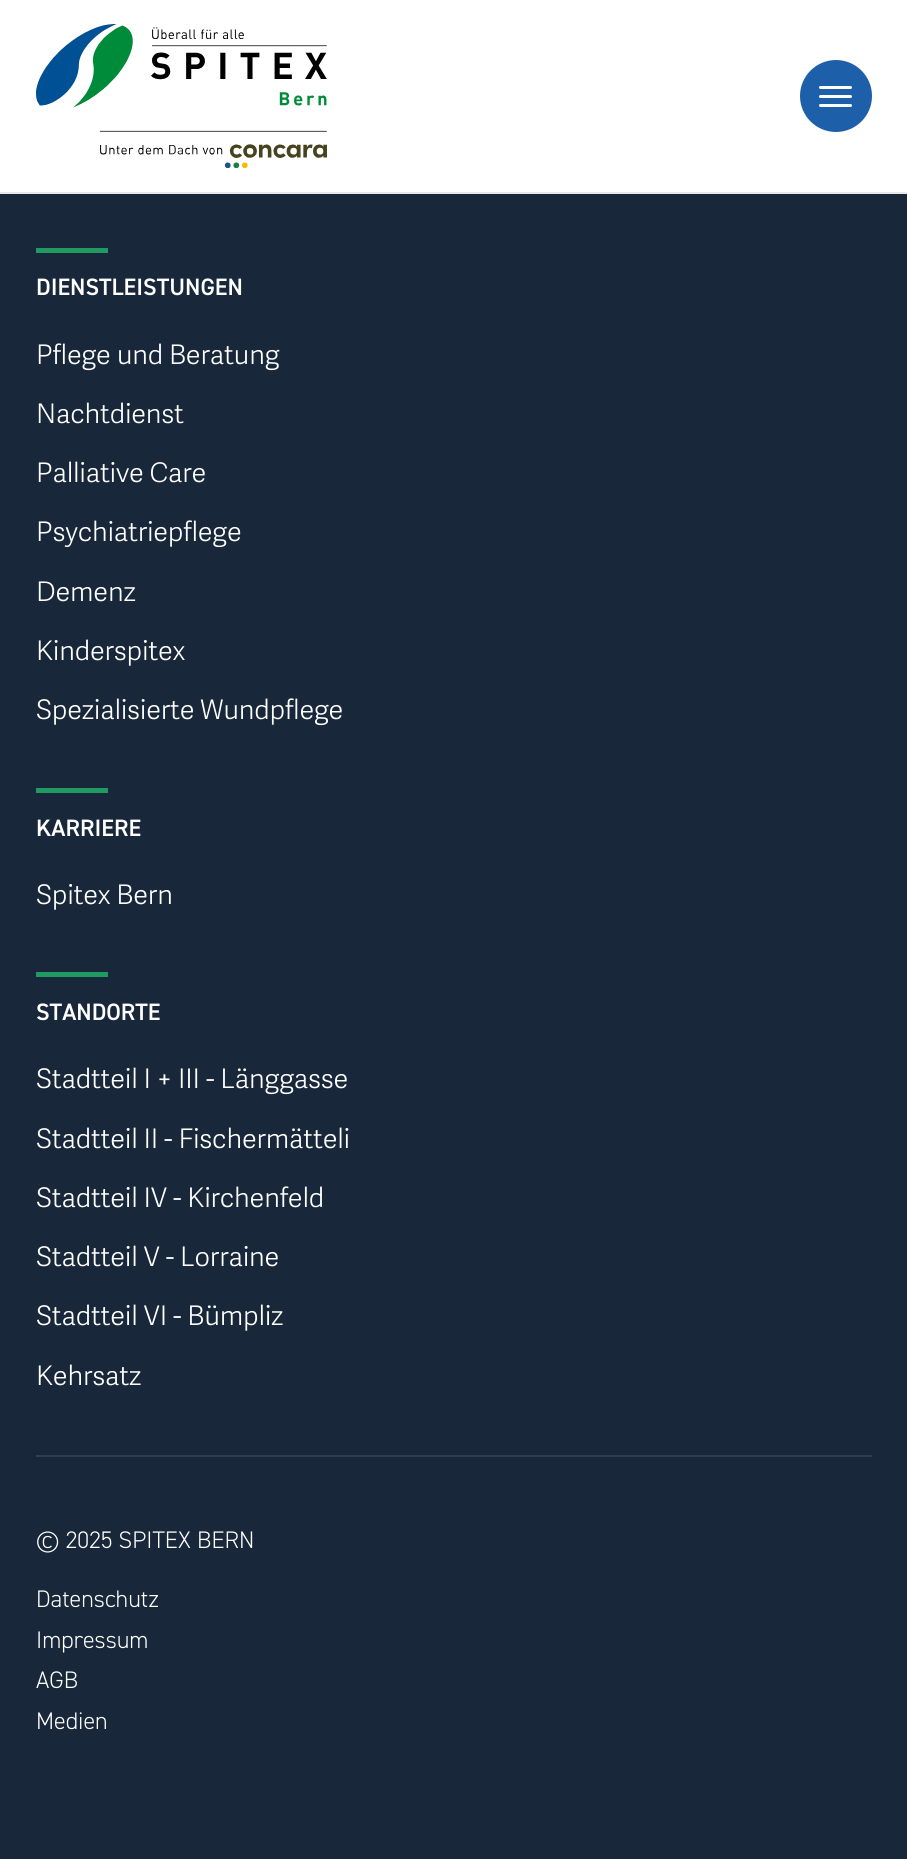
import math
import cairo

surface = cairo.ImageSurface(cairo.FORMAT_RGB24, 907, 1859)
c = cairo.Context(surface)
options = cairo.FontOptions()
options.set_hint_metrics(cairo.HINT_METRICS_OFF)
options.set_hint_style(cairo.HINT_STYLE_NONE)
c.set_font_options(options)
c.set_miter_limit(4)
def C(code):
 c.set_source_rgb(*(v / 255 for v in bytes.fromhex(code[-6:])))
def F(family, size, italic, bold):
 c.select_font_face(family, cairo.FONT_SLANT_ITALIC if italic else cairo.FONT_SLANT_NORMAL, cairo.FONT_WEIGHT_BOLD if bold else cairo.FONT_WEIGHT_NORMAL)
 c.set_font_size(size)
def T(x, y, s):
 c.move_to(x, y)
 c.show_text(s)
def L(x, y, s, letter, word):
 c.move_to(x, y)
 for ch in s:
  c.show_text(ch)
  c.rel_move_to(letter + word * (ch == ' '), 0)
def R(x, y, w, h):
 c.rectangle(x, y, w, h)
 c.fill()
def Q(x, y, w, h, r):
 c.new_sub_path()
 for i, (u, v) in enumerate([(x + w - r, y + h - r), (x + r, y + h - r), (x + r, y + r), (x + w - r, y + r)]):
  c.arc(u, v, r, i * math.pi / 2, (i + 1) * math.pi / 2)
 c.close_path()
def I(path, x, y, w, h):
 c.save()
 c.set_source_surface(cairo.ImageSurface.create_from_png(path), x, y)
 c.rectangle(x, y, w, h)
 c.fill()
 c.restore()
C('182739')
c.paint()
C('ffffff')
R(0,0,907,192)
C('e8e9eb')
R(0,192,907,2)
I('1.png',36,24,291,144)
C('1e5faa')
c.arc(836,96,36,0,2 * math.pi)
c.fill()
C('ffffff')
Q(819,86,33,3,1.5)
c.fill()
Q(819,95,33,3,1.5)
c.fill()
Q(819,104,33,3,1.5)
c.fill()
C('2f3d4d')
R(36,1455,836,2)
C('219a62')
R(36,248,72,5)
F('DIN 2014 SemiBold',23.75,0,0)
C('ffffff')
T(36,295,'DIENSTLEISTUNGEN')
F('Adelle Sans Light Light',27,0,0)
L(36,364,'Pflege und Beratung',-.2,0)
L(36,423,'Nachtdienst',-.2,0)
L(36,482,'Palliative Care',-.2,0)
L(36,541,'Psychiatriepflege',-.2,0)
L(36,601,'Demenz',-.2,0)
L(36,660,'Kinderspitex',-.2,0)
L(36,719,'Spezialisierte Wundpflege',-.2,0)
C('219a62')
R(36,788,72,5)
F('DIN 2014 SemiBold',23.75,0,0)
C('ffffff')
T(36,836,'KARRIERE')
F('Adelle Sans Light Light',27,0,0)
L(36,904,'Spitex Bern',-.2,0)
C('219a62')
R(36,972,72,5)
F('DIN 2014 SemiBold',23.75,0,0)
C('ffffff')
T(36,1020,'STANDORTE')
F('Adelle Sans Light Light',27,0,0)
L(36,1088,'Stadtteil I + III - Länggasse',-.2,0)
L(36,1148,'Stadtteil II - Fischermätteli',-.2,0)
L(36,1207,'Stadtteil IV - Kirchenfeld',-.2,0)
L(36,1266,'Stadtteil V - Lorraine',-.2,0)
L(36,1325,'Stadtteil VI - Bümpliz',-.2,0)
L(36,1385,'Kehrsatz',-.2,0)
F('DIN 2014 Light',24,0,0)
T(36,1548,'© 2025 SPITEX BERN')
T(36,1607,'Datenschutz')
T(36,1648,'Impressum')
T(36,1688,'AGB')
T(36,1729,'Medien')
surface.write_to_png('o.png')
